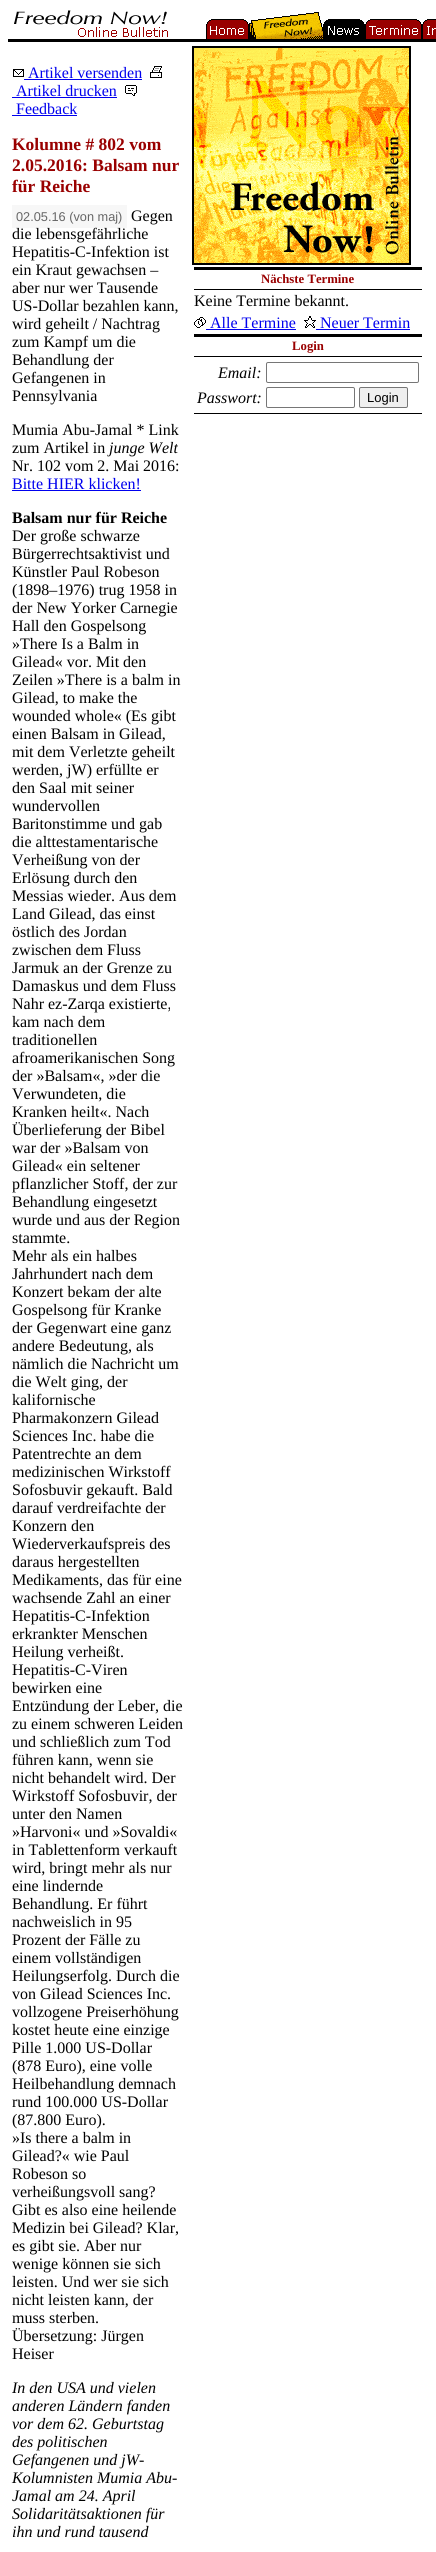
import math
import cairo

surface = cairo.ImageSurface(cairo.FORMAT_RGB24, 436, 2552)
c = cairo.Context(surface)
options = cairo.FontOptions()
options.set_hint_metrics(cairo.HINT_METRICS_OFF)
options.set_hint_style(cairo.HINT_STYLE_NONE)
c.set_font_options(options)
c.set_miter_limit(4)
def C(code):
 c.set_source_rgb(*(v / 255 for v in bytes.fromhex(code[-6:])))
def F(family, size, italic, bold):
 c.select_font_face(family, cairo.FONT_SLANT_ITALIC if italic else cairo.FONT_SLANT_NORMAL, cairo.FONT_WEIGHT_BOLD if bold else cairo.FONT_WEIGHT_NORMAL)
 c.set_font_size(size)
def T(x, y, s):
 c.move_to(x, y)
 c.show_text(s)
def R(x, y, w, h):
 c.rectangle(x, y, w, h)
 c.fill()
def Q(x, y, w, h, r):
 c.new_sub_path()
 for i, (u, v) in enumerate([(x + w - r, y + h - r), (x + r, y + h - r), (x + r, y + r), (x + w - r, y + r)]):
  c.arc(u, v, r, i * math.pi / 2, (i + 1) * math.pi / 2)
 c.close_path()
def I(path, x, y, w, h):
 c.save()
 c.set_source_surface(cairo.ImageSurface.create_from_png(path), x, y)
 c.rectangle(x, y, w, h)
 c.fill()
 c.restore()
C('ffffff')
c.paint()
I('1.png',14,10,154,27)
I('2.png',206,19,43,20)
I('3.png',249,12,74,27)
I('4.png',323,19,42,20)
I('5.png',365,19,57,20)
I('6.png',422,19,14,20)
C('000000')
R(8,39,428,3)
I('7.png',13,69,11,8)
F('Liberation Serif',16,0,0)
C('0000ee')
T(28,78,'Artikel versenden')
R(24,79,118,1)
I('8.png',150,66,12,12)
T(16,96,'Artikel drucken')
R(12,97,105,1)
I('9.png',125,85,12,11)
T(16,114,'Feedback')
R(12,115,65,1)
F('Liberation Serif',17.5,0,1)
C('990000')
T(12,150,'Kolumne # 802 vom')
T(12,171,'2.05.2016: Balsam nur')
T(12,192,'für Reiche')
C('f7f7f7')
R(12,205,115,23)
F('Liberation Sans',12.75,0,0)
C('666666')
T(16,221,'02.05.16 (von maj)')
F('Liberation Serif',16,0,0)
C('000000')
T(131,221,'Gegen')
T(12,239,'die lebensgefährliche')
T(12,257,'Hepatitis-C-Infektion ist')
T(12,275,'ein Kraut gewachsen –')
T(12,293,'aber nur wer Tausende')
T(12,311,'US-Dollar bezahlen kann,')
T(12,329,'wird geheilt / Nachtrag')
T(12,347,'zum Kampf um die')
T(12,365,'Behandlung der')
T(12,383,'Gefangenen in')
T(12,401,'Pennsylvania')
T(12,435,'Mumia Abu-Jamal * Link')
T(12,453,'zum Artikel in')
F('Liberation Serif',16,1,0)
T(109,453,'junge Welt')
F('Liberation Serif',16,0,0)
T(12,471,'Nr. 102 vom 2. Mai 2016:')
C('0000ee')
T(12,489,'Bitte HIER klicken!')
R(12,490,129,1)
F('Liberation Serif',16,0,1)
C('000000')
T(12,523,'Balsam nur für Reiche')
F('Liberation Serif',16,0,0)
T(12,541,'Der große schwarze')
T(12,559,'Bürgerrechtsaktivist und')
T(12,577,'Künstler Paul Robeson')
T(12,595,'(1898–1976) trug 1958 in')
T(12,613,'der New Yorker Carnegie')
T(12,631,'Hall den Gospelsong')
T(12,649,'»There Is a Balm in')
T(12,667,'Gilead« vor. Mit den')
T(12,685,'Zeilen »There is a balm in')
T(12,703,'Gilead, to make the')
T(12,721,'wounded whole« (Es gibt')
T(12,739,'einen Balsam in Gilead,')
T(12,757,'mit dem Verletzte geheilt')
T(12,775,'werden, jW) erfüllte er')
T(12,793,'den Saal mit seiner')
T(12,811,'wundervollen')
T(12,829,'Baritonstimme und gab')
T(12,847,'die alttestamentarische')
T(12,865,'Verheißung von der')
T(12,883,'Erlösung durch den')
T(12,901,'Messias wieder. Aus dem')
T(12,919,'Land Gilead, das einst')
T(12,937,'östlich des Jordan')
T(12,955,'zwischen dem Fluss')
T(12,973,'Jarmuk an der Grenze zu')
T(12,991,'Damaskus und dem Fluss')
T(12,1009,'Nahr ez-Zarqa existierte,')
T(12,1027,'kam nach dem')
T(12,1045,'traditionellen')
T(12,1063,'afroamerikanischen Song')
T(12,1081,'der »Balsam«, »der die')
T(12,1099,'Verwundeten, die')
T(12,1117,'Kranken heilt«. Nach')
T(12,1135,'Überlieferung der Bibel')
T(12,1153,'war der »Balsam von')
T(12,1171,'Gilead« ein seltener')
T(12,1189,'pflanzlicher Stoff, der zur')
T(12,1207,'Behandlung eingesetzt')
T(12,1225,'wurde und aus der Region')
T(12,1243,'stammte.')
T(12,1261,'Mehr als ein halbes')
T(12,1279,'Jahrhundert nach dem')
T(12,1297,'Konzert bekam der alte')
T(12,1315,'Gospelsong für Kranke')
T(12,1333,'der Gegenwart eine ganz')
T(12,1351,'andere Bedeutung, als')
T(12,1369,'nämlich die Nachricht um')
T(12,1387,'die Welt ging, der')
T(12,1405,'kalifornische')
T(12,1423,'Pharmakonzern Gilead')
T(12,1441,'Sciences Inc. habe die')
T(12,1459,'Patentrechte an dem')
T(12,1477,'medizinischen Wirkstoff')
T(12,1495,'Sofosbuvir gekauft. Bald')
T(12,1513,'darauf verdreifachte der')
T(12,1531,'Konzern den')
T(12,1549,'Wiederverkaufspreis des')
T(12,1567,'daraus hergestellten')
T(12,1585,'Medikaments, das für eine')
T(12,1603,'wachsende Zahl an einer')
T(12,1621,'Hepatitis-C-Infektion')
T(12,1639,'erkrankter Menschen')
T(12,1657,'Heilung verheißt.')
T(12,1675,'Hepatitis-C-Viren')
T(12,1693,'bewirken eine')
T(12,1711,'Entzündung der Leber, die')
T(12,1729,'zu einem schweren Leiden')
T(12,1747,'und schließlich zum Tod')
T(12,1765,'führen kann, wenn sie')
T(12,1783,'nicht behandelt wird. Der')
T(12,1801,'Wirkstoff Sofosbuvir, der')
T(12,1819,'unter den Namen')
T(12,1837,'»Harvoni« und »Sovaldi«')
T(12,1855,'in Tablettenform verkauft')
T(12,1873,'wird, bringt mehr als nur')
T(12,1891,'eine lindernde')
T(12,1909,'Behandlung. Er führt')
T(12,1927,'nachweislich in 95')
T(12,1945,'Prozent der Fälle zu')
T(12,1963,'einem vollständigen')
T(12,1981,'Heilungserfolg. Durch die')
T(12,1999,'von Gilead Sciences Inc.')
T(12,2017,'vollzogene Preiserhöhung')
T(12,2035,'kostet heute eine einzige')
T(12,2053,'Pille 1.000 US-Dollar')
T(12,2071,'(878 Euro), eine volle')
T(12,2089,'Heilbehandlung demnach')
T(12,2107,'rund 100.000 US-Dollar')
T(12,2125,'(87.800 Euro).')
T(12,2143,'»Is there a balm in')
T(12,2161,'Gilead?« wie Paul')
T(12,2179,'Robeson so')
T(12,2197,'verheißungsvoll sang?')
T(12,2215,'Gibt es also eine heilende')
T(12,2233,'Medizin bei Gilead? Klar,')
T(12,2251,'es gibt sie. Aber nur')
T(12,2269,'wenige können sie sich')
T(12,2287,'leisten. Und wer sie sich')
T(12,2305,'nicht leisten kann, der')
T(12,2323,'muss sterben.')
T(12,2341,'Übersetzung: Jürgen')
T(12,2359,'Heiser')
F('Liberation Serif',16,1,0)
T(12,2393,'In den USA und vielen')
T(12,2411,'anderen Ländern fanden')
T(12,2429,'vor dem 62. Geburtstag')
T(12,2447,'des politischen')
T(12,2465,'Gefangenen und jW-')
T(12,2483,'Kolumnisten Mumia Abu-')
T(12,2501,'Jamal am 24. April')
T(12,2519,'Solidaritätsaktionen für')
T(12,2537,'ihn und rund tausend')
I('10.png',192,46,219,219)
R(194,267,228,3)
F('Liberation Serif',12.75,0,1)
C('990000')
T(261,283,'Nächste Termine')
C('000000')
R(194,289,228,1)
F('Liberation Serif',16,0,0)
T(194,306,'Keine Termine bekannt.')
I('11.png',194,317,12,11)
C('0000ee')
T(210,328,'Alle Termine')
R(206,329,90,1)
I('12.png',304,316,12,12)
T(320,328,'Neuer Termin')
R(316,329,94,1)
C('000000')
R(194,334,228,3)
F('Liberation Serif',12.75,0,1)
C('990000')
T(292,350,'Login')
C('000000')
R(194,356,228,1)
F('Liberation Serif',16,1,0)
T(218,378,'Email:')
Q(266.5,362.5,152,20,1.5)
C('767676')
c.set_line_width(1)
c.stroke()
C('000000')
T(197,403,'Passwort:')
Q(266.5,387.5,88,20,1.5)
C('767676')
c.stroke()
C('efefef')
Q(359.5,387.5,48,20,1.5)
c.fill_preserve()
C('767676')
c.stroke()
F('Liberation Sans',13,0,0)
C('000000')
T(367,402,'Login')
R(194,413,228,1)
surface.write_to_png('o.png')
